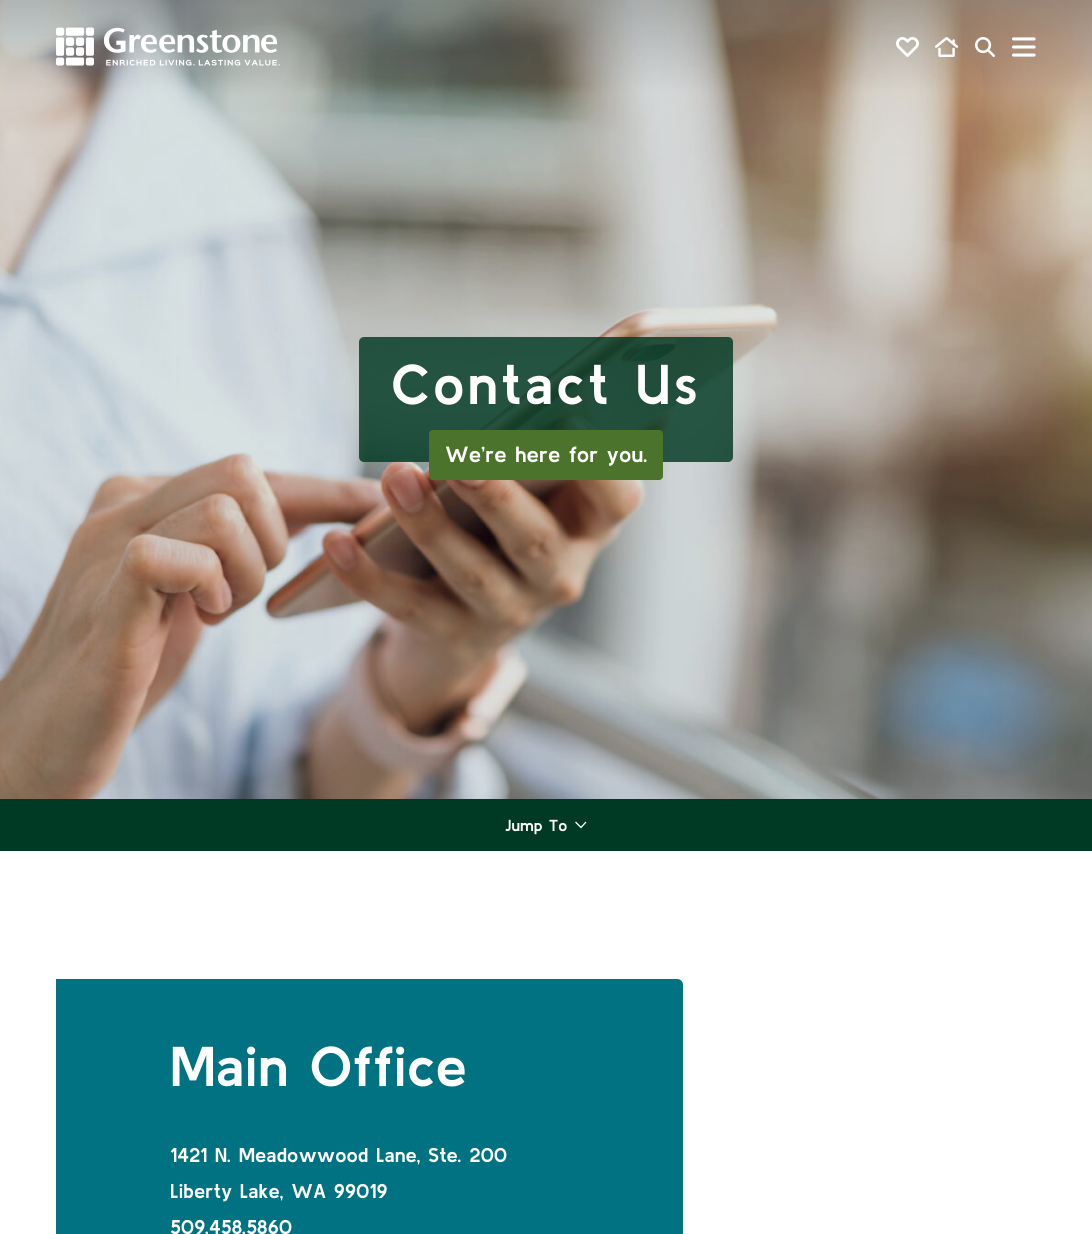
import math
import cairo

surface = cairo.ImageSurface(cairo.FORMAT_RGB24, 1092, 1234)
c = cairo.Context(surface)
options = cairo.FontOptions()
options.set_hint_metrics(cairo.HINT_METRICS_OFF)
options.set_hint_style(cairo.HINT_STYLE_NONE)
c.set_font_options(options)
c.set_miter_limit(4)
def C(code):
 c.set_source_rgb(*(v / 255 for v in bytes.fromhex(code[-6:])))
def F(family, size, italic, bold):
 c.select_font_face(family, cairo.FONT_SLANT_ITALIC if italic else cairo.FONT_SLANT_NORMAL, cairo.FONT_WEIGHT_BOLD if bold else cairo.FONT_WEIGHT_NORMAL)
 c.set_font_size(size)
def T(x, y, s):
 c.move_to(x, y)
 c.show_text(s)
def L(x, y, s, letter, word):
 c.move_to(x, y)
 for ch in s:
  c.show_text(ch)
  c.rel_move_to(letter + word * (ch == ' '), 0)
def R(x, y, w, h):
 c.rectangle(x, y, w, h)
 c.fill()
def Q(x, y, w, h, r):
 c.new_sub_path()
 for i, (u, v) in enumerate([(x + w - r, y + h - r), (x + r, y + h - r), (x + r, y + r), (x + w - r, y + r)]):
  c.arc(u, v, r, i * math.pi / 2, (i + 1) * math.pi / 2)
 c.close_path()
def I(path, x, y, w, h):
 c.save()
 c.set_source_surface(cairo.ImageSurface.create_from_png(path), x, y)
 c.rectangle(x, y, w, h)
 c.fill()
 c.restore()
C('ffffff')
c.paint()
I('6.png',0,0,1092,799)
I('1.png',56,27,224,39)
I('2.png',896,37,23,20)
I('3.png',935,37,24,20)
I('4.png',975,37,20,20)
I('5.png',1012,37,24,20)
c.set_source_rgba(0,0.22,0.141,0.82)
Q(359,337,374,125,5)
c.fill()
F('Kulim Park',56,0,1)
C('ffffff')
L(391,404,'Contact Us',3,0)
C('4c732b')
Q(429,430,234,50,4)
c.fill()
F('Kulim Park',22,0,1)
C('ffffff')
T(445,462,'We’re here for you.')
C('003924')
R(0,799,1092,52)
F('Kulim Park',16,0,1)
C('ffffff')
T(505,831,'Jump To')
c.new_path()
c.move_to(575.5,822)
c.line_to(581,827.5)
c.line_to(586,822)
c.set_line_width(1.3)
c.stroke()
C('007281')
c.new_path()
c.move_to(56,979)
c.line_to(677,979)
c.curve_to(680.5,979,683,981.5,683,985)
c.line_to(683,1234)
c.curve_to(683,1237.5,680.5,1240,677,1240)
c.line_to(56,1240)
c.close_path()
c.fill()
F('Kulim Park',56,0,1)
C('ffffff')
T(170,1086,'Main Office')
F('Kulim Park',20,0,1)
T(170,1162,'1421 N. Meadowwood Lane, Ste. 200')
T(170,1198,'Liberty Lake, WA 99019')
T(170,1234,'509.458.5860')
surface.write_to_png('o.png')
